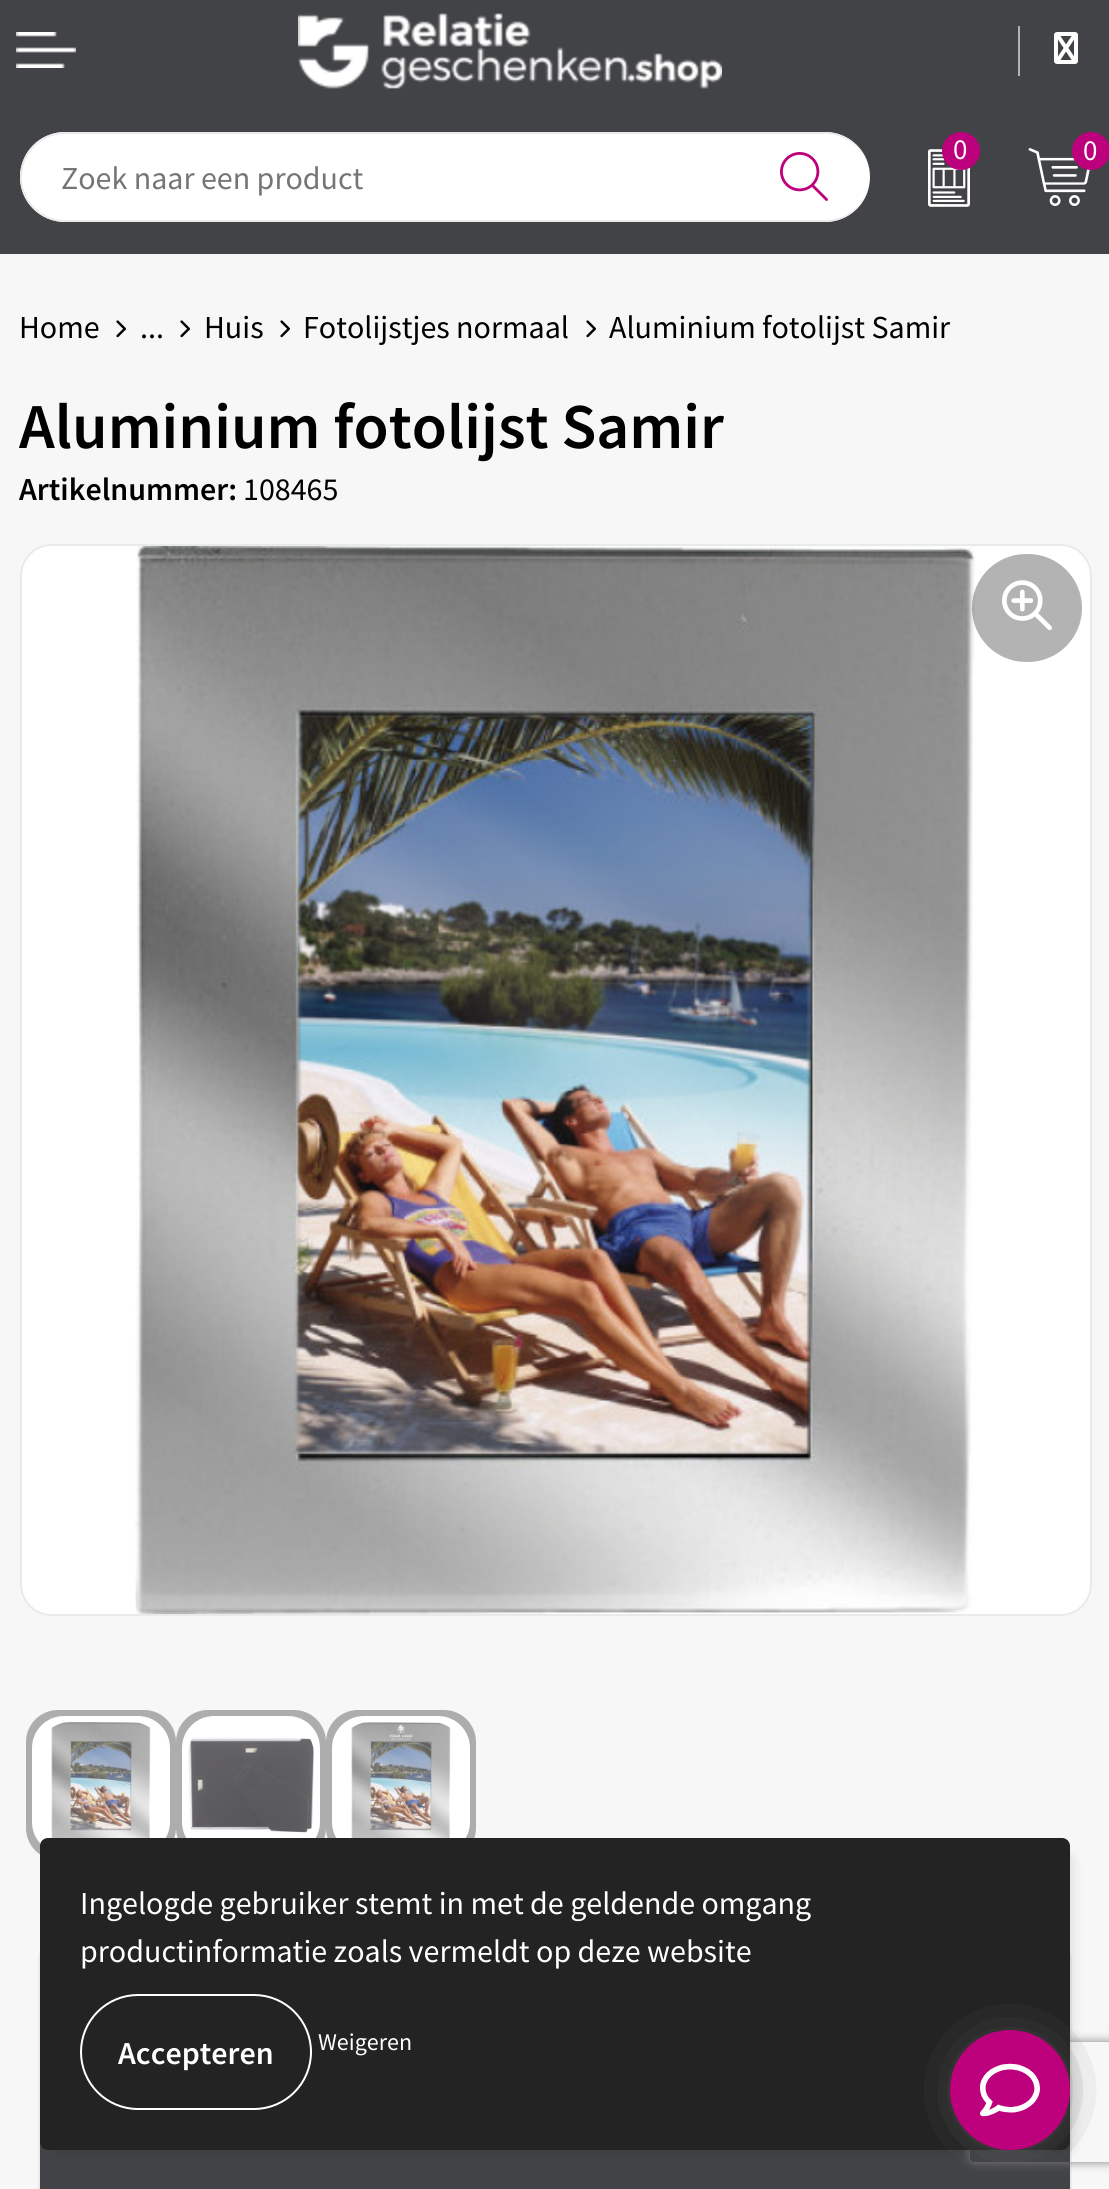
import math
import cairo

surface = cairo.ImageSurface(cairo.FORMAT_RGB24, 1109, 2189)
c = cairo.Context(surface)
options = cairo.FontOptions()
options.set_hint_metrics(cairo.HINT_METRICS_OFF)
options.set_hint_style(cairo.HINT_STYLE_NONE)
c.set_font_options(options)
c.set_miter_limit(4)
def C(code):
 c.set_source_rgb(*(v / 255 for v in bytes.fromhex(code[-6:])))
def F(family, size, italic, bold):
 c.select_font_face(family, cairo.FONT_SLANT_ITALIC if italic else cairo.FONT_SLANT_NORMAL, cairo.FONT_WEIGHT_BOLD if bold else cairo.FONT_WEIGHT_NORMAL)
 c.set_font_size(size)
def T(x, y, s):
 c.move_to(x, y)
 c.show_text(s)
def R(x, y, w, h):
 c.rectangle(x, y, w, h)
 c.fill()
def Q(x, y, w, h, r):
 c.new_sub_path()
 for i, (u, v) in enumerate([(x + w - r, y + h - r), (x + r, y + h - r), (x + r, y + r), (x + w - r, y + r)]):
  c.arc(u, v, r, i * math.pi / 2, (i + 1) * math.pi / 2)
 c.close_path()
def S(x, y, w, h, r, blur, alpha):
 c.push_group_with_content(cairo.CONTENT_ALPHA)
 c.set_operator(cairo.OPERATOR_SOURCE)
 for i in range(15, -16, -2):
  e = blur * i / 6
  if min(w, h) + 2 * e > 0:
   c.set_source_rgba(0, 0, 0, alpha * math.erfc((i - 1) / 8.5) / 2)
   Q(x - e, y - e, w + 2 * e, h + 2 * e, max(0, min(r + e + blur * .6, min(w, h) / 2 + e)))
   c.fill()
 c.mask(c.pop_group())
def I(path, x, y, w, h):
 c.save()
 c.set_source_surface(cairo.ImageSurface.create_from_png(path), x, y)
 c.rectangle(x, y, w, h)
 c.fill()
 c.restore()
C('f7f7f7')
c.paint()
C('424346')
R(0,0,1109,254)
I('1.png',16,32,60,36)
I('2.png',298,13,424,76)
C('b3b4b5')
R(1018,26,2,50)
I('3.png',1054,32,24,32)
I('4.png',928,149,42,58)
C('bd007b')
c.arc(961,151,19,0,2 * math.pi)
c.fill()
F('Source Sans Pro',29,0,0)
C('ffffff')
T(953,159,'0')
I('5.png',1028,148,62,58)
C('bd007b')
c.arc(1091,151,19,0,2 * math.pi)
c.fill()
C('ffffff')
T(1083,160,'0')
Q(20,132,850,90,45)
c.fill()
C('eaeaea')
c.set_fill_rule(cairo.FILL_RULE_EVEN_ODD)
c.new_path()
c.move_to(65,132)
c.line_to(825,132)
c.curve_to(850,132,870,152,870,177)
c.curve_to(870,202,850,222,825,222)
c.line_to(65,222)
c.curve_to(40,222,20,202,20,177)
c.curve_to(20,152,40,132,65,132)
c.close_path()
c.move_to(65,134)
c.line_to(825,134)
c.curve_to(850,134,870,153,870,177)
c.curve_to(870,201,850,220,825,220)
c.line_to(65,220)
c.curve_to(41,220,22,201,22,177)
c.curve_to(22,153,41,134,65,134)
c.close_path()
c.fill()
F('Source Sans Pro',32,0,0)
C('757575')
T(61,189,'Zoek naar een product')
I('6.png',780,152,48,49)
C('000000')
T(19,338,'Home')
I('7.png',116,320,10,18)
T(140,338,'...')
I('7.png',180,320,10,18)
T(204,338,'Huis')
I('7.png',280,320,10,18)
T(303,338,'Fotolijstjes normaal')
I('7.png',586,320,10,18)
T(609,338,'Aluminium fotolijst Samir')
F('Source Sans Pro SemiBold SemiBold',64,0,0)
T(19,448,'Aluminium fotolijst Samir')
F('Source Sans Pro SemiBold SemiBold',32,0,0)
T(19,500,'Artikelnummer:')
F('Source Sans Pro',32,0,0)
T(243,500,'108465')
Q(21,545,1070,1070,31)
C('eaeaea')
c.stroke()
I('8.png',22,546,1068,1068)
c.set_source_rgba(0,0,0,0.3)
Q(972,554,110,108,54)
c.fill()
I('9.png',1002,580,50,51)
C('adadad')
Q(26,1710,150,150,32)
c.fill()
C('ffffff')
Q(32,1716,138,138,32)
c.fill()
I('10.png',51,1722,100,116)
C('adadad')
Q(176,1710,150,150,32)
c.fill()
C('ffffff')
Q(182,1716,138,138,32)
c.fill()
I('11.png',188,1738,126,95)
C('adadad')
Q(326,1710,150,150,32)
c.fill()
C('ffffff')
Q(332,1716,138,138,32)
c.fill()
I('12.png',351,1722,100,116)
Q(39,1931,1032,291,31)
C('eaeaea')
c.stroke()
C('424346')
R(40,2142,1030,47)
C('000000')
S(60,1858,1010,292,0,7,.15)
c.save()
c.new_path()
c.move_to(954,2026)
c.line_to(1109,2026)
c.line_to(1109,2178)
c.line_to(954,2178)
c.close_path()
c.move_to(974,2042)
c.line_to(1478,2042)
c.curve_to(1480,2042,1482,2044,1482,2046)
c.line_to(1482,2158)
c.curve_to(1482,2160,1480,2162,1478,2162)
c.line_to(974,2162)
c.curve_to(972,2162,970,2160,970,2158)
c.line_to(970,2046)
c.curve_to(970,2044,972,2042,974,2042)
c.close_path()
c.clip()
C('808080')
S(970,2042,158,120,4,5,1)
c.restore()
C('232323')
Q(40,1838,1030,312,8)
c.fill()
C('ffffff')
T(80,1914,'Ingelogde gebruiker stemt in met de geldende omgang')
T(80,1962,'productinformatie zoals vermeldt op deze website')
Q(81,1995,230,114,57)
c.stroke()
F('Source Sans Pro SemiBold SemiBold',32,0,0)
T(118,2064,'Accepteren')
F('Source Sans Pro',24,0,0)
T(318,2050,'Weigeren')
I('13.png',924,2004,173,158)
surface.write_to_png('o.png')
